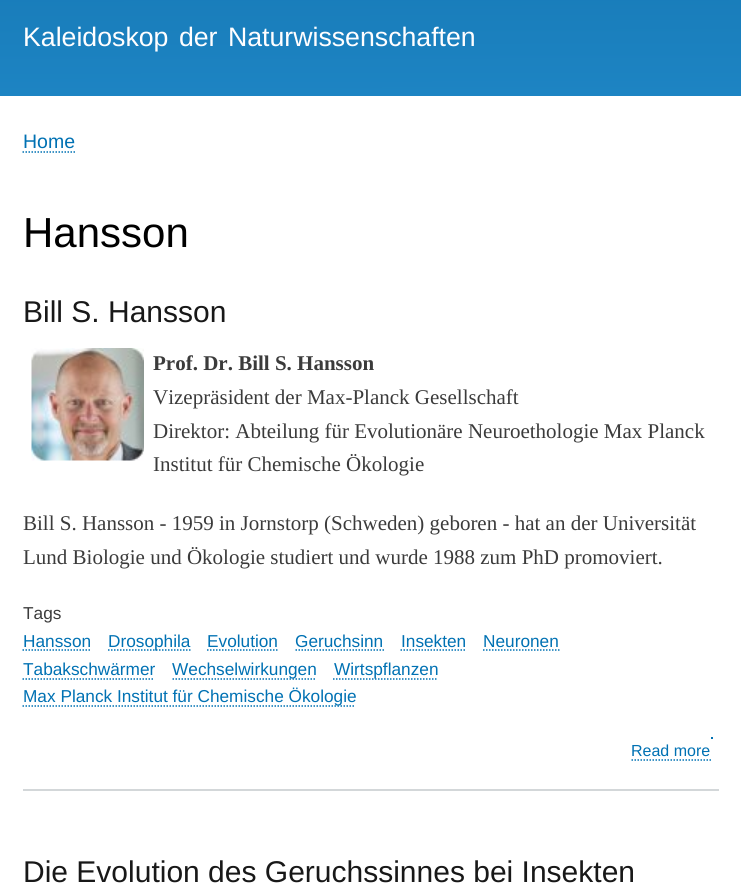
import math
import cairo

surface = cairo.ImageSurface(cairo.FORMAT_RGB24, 741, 883)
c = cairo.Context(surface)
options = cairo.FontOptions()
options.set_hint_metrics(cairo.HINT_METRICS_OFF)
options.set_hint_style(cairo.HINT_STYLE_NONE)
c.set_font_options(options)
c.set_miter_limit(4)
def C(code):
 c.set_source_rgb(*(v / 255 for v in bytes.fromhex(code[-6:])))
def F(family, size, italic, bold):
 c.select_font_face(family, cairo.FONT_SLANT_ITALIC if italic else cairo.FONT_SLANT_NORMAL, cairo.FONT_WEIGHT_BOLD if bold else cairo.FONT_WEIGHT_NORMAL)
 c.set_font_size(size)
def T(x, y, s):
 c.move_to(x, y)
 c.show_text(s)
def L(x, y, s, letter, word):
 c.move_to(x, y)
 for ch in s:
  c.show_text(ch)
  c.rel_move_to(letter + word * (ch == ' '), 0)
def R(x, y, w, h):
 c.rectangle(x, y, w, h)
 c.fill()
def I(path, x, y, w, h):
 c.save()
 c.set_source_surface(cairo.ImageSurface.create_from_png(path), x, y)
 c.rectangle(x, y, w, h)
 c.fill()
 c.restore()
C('ffffff')
c.paint()
gradient = cairo.LinearGradient(370,-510,371,96)
gradient.add_color_stop_rgba(0,0.02,0.353,0.557,1)
gradient.add_color_stop_rgba(1,0.114,0.518,0.765,1)
c.set_source(gradient)
R(0,0,741,96)
F('Liberation Sans',26.7,0,0)
C('fffeff')
L(23,46,'Kaleidoskop der Naturwissenschaften',0,3)
F('Liberation Sans',19.5,0,0)
C('0071b3')
T(23,148,'Home')
c.new_path()
c.move_to(22.5,152)
c.line_to(75,152)
c.set_line_width(1.5)
c.set_dash([1.5,1.5])
c.stroke()
F('Liberation Sans',42,0,0)
C('000000')
T(23,247,'Hansson')
C('d3d7d9')
R(23,789,696,2)
F('Liberation Sans',30,0,0)
C('181818')
T(23,322,'Bill S. Hansson')
I('1.png',31,348,113,113)
F('Liberation Serif',21,0,1)
C('3b3b3b')
T(153,370,'Prof. Dr. Bill S. Hansson')
F('Liberation Serif',21,0,0)
T(153,404,'Vizepräsident der Max-Planck Gesellschaft')
T(153,438,'Direktor: Abteilung für Evolutionäre Neuroethologie Max Planck')
T(153,471,'Institut für Chemische Ökologie')
T(23,530,'Bill S. Hansson - 1959 in Jornstorp (Schweden) geboren - hat an der Universität')
T(23,564,'Lund Biologie und Ökologie studiert und wurde 1988 zum PhD promoviert.')
F('Liberation Sans',17.25,0,0)
T(23,619,'Tags')
C('0071b3')
T(23,647,'Hansson')
c.new_path()
c.move_to(22.5,650)
c.line_to(90,650)
c.stroke()
c.new_path()
c.move_to(108,650)
c.line_to(190.5,650)
c.stroke()
T(108,647,'Drosophila')
T(207,647,'Evolution')
c.new_path()
c.move_to(207,650)
c.line_to(277.5,650)
c.stroke()
T(295,647,'Geruchsinn')
c.new_path()
c.move_to(295.5,650)
c.line_to(384,650)
c.stroke()
T(401,647,'Insekten')
c.new_path()
c.move_to(400.5,650)
c.line_to(466.5,650)
c.stroke()
T(483,647,'Neuronen')
c.new_path()
c.move_to(483,650)
c.line_to(559.5,650)
c.stroke()
T(23,675,'Tabakschwärmer')
c.new_path()
c.move_to(22.5,679)
c.line_to(154.5,679)
c.stroke()
c.new_path()
c.move_to(172.5,679)
c.line_to(316.5,679)
c.stroke()
T(172,675,'Wechselwirkungen')
c.new_path()
c.move_to(333,679)
c.line_to(438,679)
c.stroke()
T(334,675,'Wirtspflanzen')
c.new_path()
c.move_to(22.5,706)
c.line_to(355.5,706)
c.stroke()
T(23,702,'Max Planck Institut für Chemische Ökologie')
F('Liberation Sans',16,0,0)
T(631,756,'Read more')
c.new_path()
c.move_to(631.5,760)
c.line_to(711,760)
c.stroke()
R(711,737,2,2)
F('Liberation Sans',30,0,0)
C('181818')
T(23,882,'Die Evolution des Geruchssinnes bei Insekten')
surface.write_to_png('o.png')
